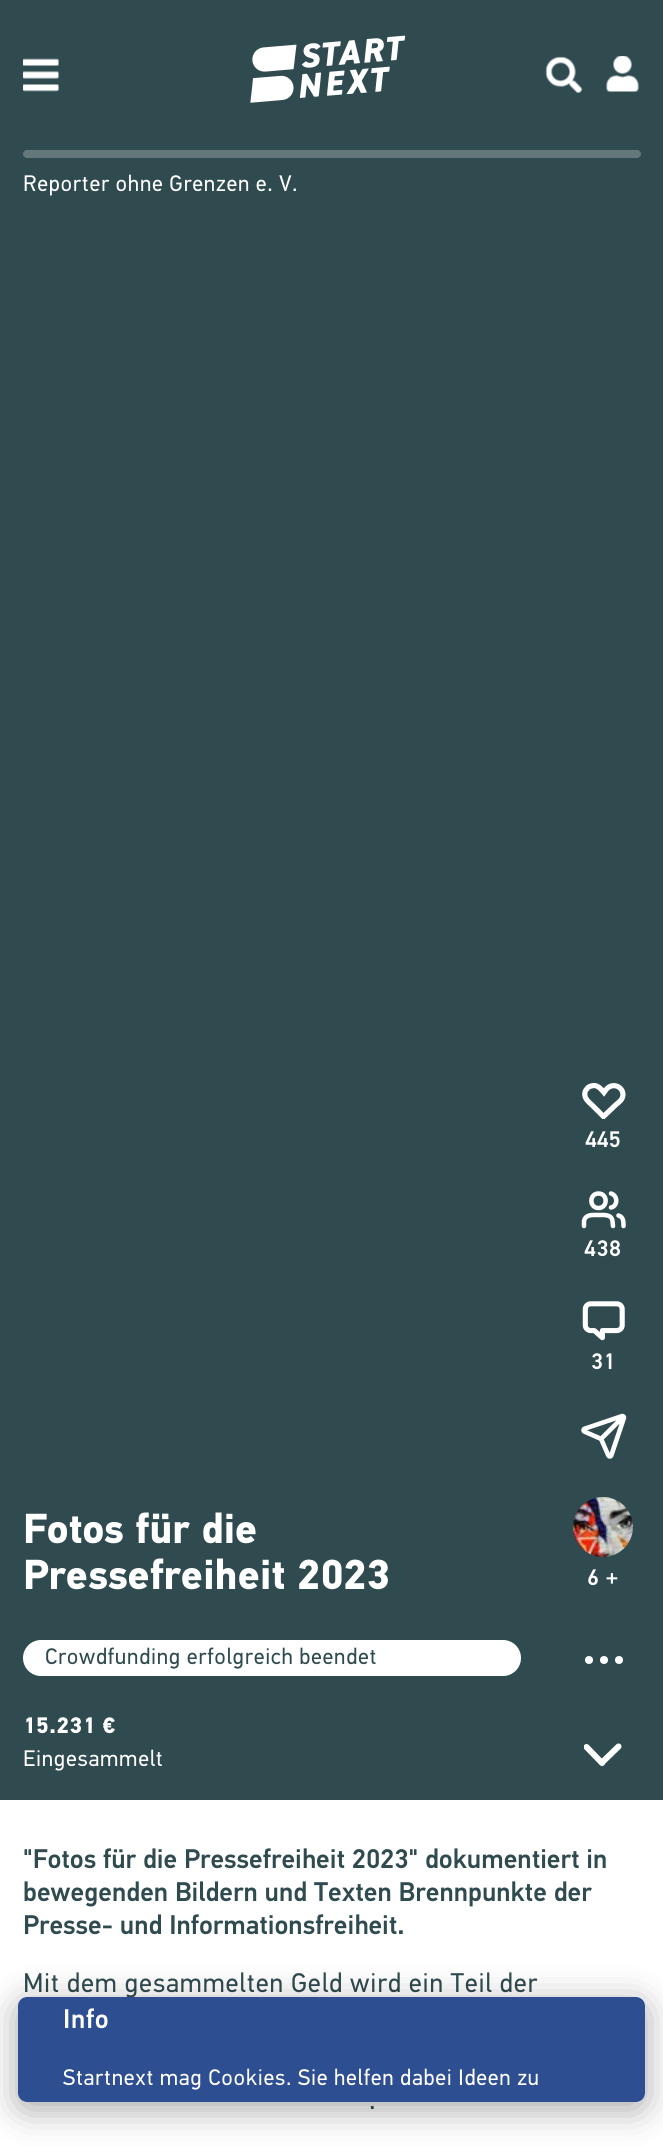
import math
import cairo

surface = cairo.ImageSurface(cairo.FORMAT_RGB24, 663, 2146)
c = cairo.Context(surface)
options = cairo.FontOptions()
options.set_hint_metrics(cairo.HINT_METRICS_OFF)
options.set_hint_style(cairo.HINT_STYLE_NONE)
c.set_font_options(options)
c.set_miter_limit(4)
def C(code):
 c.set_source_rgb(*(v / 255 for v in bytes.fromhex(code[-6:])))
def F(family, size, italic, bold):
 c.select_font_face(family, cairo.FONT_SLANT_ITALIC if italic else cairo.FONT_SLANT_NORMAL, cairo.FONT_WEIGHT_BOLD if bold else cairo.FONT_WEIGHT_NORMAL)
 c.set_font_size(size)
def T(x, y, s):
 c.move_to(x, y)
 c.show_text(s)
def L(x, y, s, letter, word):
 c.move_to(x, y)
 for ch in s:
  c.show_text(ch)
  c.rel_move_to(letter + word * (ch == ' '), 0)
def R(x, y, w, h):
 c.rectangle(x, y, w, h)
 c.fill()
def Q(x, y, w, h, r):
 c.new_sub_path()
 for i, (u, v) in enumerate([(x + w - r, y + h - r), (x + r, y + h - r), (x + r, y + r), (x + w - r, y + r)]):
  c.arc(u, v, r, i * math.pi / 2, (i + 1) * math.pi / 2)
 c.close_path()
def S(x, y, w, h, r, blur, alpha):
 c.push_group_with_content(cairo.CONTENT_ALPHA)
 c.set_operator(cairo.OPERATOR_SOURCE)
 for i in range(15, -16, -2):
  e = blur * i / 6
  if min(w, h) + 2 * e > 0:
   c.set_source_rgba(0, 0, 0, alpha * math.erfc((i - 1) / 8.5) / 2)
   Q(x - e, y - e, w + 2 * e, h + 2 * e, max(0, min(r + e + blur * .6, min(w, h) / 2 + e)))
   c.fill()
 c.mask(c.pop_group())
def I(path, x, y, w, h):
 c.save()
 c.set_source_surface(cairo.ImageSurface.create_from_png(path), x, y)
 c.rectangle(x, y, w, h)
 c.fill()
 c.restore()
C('ffffff')
c.paint()
C('304b50')
R(0,0,663,1800)
I('1.png',23,58,36,34)
I('2.png',250,35,156,68)
I('3.png',545,56,38,37)
I('4.png',606,56,33,36)
C('64787c')
Q(23,150,618,8,4)
c.fill()
F('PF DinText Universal',22.5,0,0)
C('ffffff')
L(23,191,'Reporter ohne Grenzen e. V.',.7,0)
c.save()
c.rectangle(582,1083,44,36)
c.clip()
c.new_path()
c.move_to(588,1087.5)
c.curve_to(590,1086,592.5,1085.5,595,1085.5)
c.curve_to(599,1086.5,601.5,1089.5,604,1092.5)
c.curve_to(605.5,1090.5,606.5,1088.5,609,1087)
c.curve_to(616.5,1082.5,626,1090,622,1098.5)
c.curve_to(620.5,1101.5,617,1103.5,614.5,1106)
c.line_to(603.5,1116.5)
c.line_to(593,1106)
c.curve_to(589,1102,583.5,1098.5,585,1092)
c.curve_to(585.5,1090.5,586.5,1089,588,1087.5)
c.close_path()
c.set_line_width(5.2)
c.stroke()
c.restore()
F('PF DinText Universal Medium',22.5,0,0)
T(585,1147,'445')
c.new_path()
c.move_to(613,1226)
c.line_to(612.5,1221)
c.curve_to(611.5,1214,603.5,1215,598.5,1215)
c.curve_to(593,1215,585.5,1214,584,1221)
c.line_to(584,1226)
c.move_to(598.5,1208)
c.curve_to(608,1208,608,1193.5,598.5,1193.5)
c.curve_to(589,1193.5,589,1208,598.5,1208)
c.close_path()
c.move_to(623.5,1226)
c.curve_to(623.5,1221.5,623.5,1217,618.5,1215.5)
c.move_to(611,1193.5)
c.curve_to(618,1195.5,618,1206,611,1207.5)
c.set_line_width(4.5)
c.set_line_cap(cairo.LINE_CAP_ROUND)
c.set_line_join(cairo.LINE_JOIN_ROUND)
c.stroke()
L(584,1256,'438',.7,0)
I('5.png',582,1301,43,40)
L(591,1369,'31',.7,0)
I('6.png',581,1413,46,46)
I('7.png',573,1497,60,60)
L(587,1585,'6 +',.7,0)
c.new_path()
c.arc(589,1660,4,0,2 * math.pi)
c.fill()
c.arc(604,1660,4,0,2 * math.pi)
c.fill()
c.arc(619,1660,4,0,2 * math.pi)
c.fill()
c.new_path()
c.move_to(602.5,1762)
c.line_to(618.5,1746.5)
c.set_line_width(6)
c.set_line_join(cairo.LINE_JOIN_MITER)
c.stroke()
c.save()
c.rectangle(584,1743,39,24)
c.clip()
c.new_path()
c.move_to(602,1763)
c.line_to(586.5,1747)
c.stroke()
c.restore()
F('PF DinText Universal',42,0,1)
T(23,1543,'Fotos für die')
T(23,1589,'Pressefreiheit 2023')
Q(23,1640,498,36,18)
c.fill()
F('PF DinText Universal',22.5,0,0)
C('304b50')
L(45,1664,'Crowdfunding erfolgreich beendet',.7,0)
F('PF DinText Universal',22.5,0,1)
C('ffffff')
L(23,1733,'15.231 €',.7,0)
F('PF DinText Universal',22.5,0,0)
L(23,1766,'Eingesammelt',.7,0)
F('PF DinText Universal Medium',27,0,0)
C('304b50')
T(23,1868,'"Fotos für die Pressefreiheit 2023" dokumentiert in')
T(23,1901,'bewegenden Bildern und Texten Brennpunkte der')
T(23,1934,'Presse- und Informationsfreiheit.')
F('PF DinText Universal',27,0,0)
L(23,1992,'Mit dem gesammelten Geld wird ein Teil der',.8,0)
L(369,2109,'.',.8,0)
c.save()
c.set_fill_rule(cairo.FILL_RULE_EVEN_ODD)
c.new_path()
c.move_to(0,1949)
c.line_to(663,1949)
c.line_to(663,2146)
c.line_to(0,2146)
c.close_path()
c.move_to(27,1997)
c.line_to(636,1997)
c.curve_to(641,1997,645,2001,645,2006)
c.line_to(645,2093)
c.curve_to(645,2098,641,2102,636,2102)
c.line_to(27,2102)
c.curve_to(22,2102,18,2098,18,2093)
c.line_to(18,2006)
c.curve_to(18,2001,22,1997,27,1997)
c.close_path()
c.clip()
C('000000')
S(18,2004,627,105,9,18,.35)
c.restore()
c.set_source_rgba(0.141,0.275,0.553,0.95)
Q(18,1997,627,105,9)
c.fill()
F('PF DinText Universal Medium',27,0,0)
C('ffffff')
L(63,2028,'Info',.7,0)
F('PF DinText Universal',22.5,0,0)
L(63,2085,'Startnext mag Cookies. Sie helfen dabei Ideen zu',.7,0)
surface.write_to_png('o.png')
